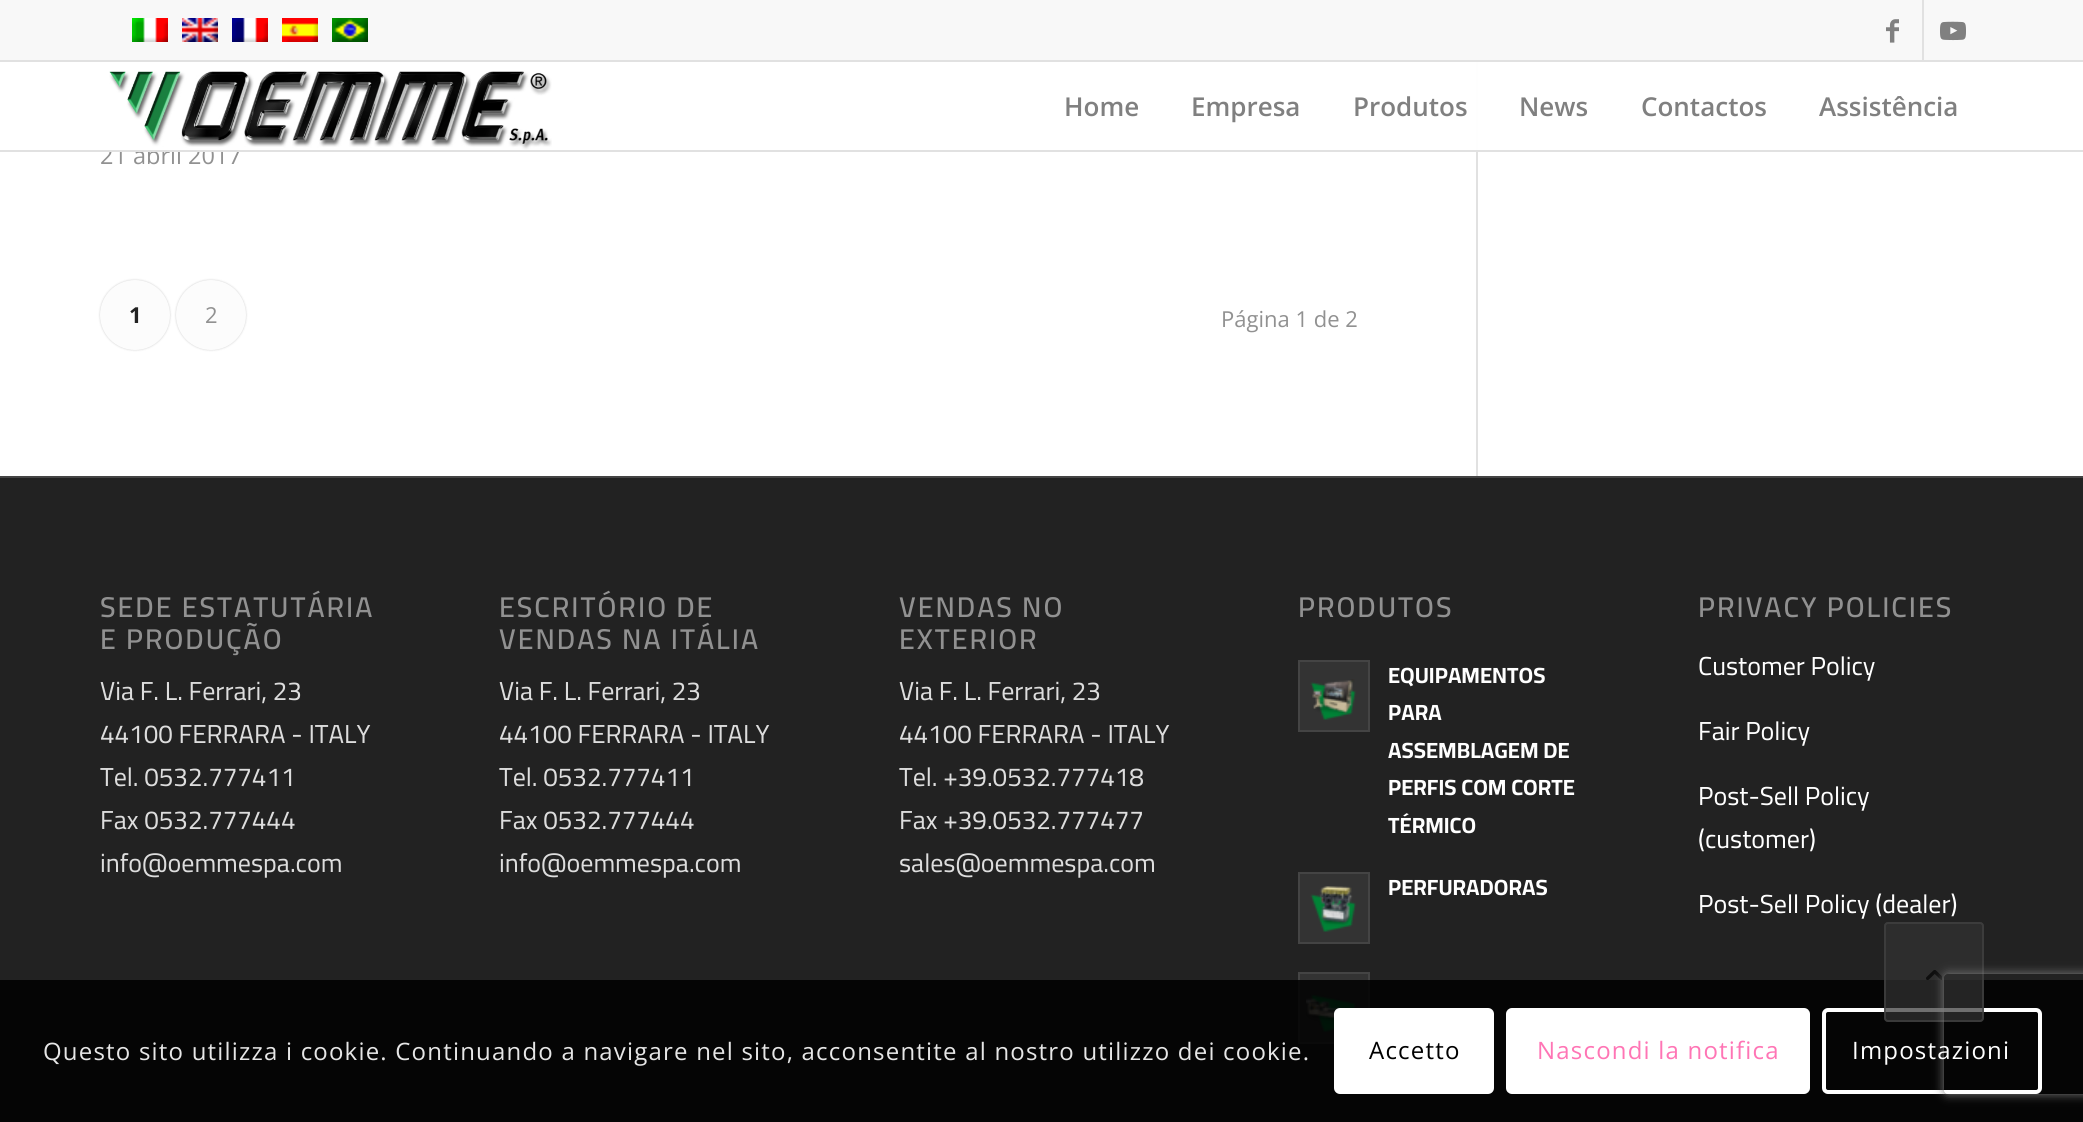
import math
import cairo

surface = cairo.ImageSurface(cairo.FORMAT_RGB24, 2083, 1122)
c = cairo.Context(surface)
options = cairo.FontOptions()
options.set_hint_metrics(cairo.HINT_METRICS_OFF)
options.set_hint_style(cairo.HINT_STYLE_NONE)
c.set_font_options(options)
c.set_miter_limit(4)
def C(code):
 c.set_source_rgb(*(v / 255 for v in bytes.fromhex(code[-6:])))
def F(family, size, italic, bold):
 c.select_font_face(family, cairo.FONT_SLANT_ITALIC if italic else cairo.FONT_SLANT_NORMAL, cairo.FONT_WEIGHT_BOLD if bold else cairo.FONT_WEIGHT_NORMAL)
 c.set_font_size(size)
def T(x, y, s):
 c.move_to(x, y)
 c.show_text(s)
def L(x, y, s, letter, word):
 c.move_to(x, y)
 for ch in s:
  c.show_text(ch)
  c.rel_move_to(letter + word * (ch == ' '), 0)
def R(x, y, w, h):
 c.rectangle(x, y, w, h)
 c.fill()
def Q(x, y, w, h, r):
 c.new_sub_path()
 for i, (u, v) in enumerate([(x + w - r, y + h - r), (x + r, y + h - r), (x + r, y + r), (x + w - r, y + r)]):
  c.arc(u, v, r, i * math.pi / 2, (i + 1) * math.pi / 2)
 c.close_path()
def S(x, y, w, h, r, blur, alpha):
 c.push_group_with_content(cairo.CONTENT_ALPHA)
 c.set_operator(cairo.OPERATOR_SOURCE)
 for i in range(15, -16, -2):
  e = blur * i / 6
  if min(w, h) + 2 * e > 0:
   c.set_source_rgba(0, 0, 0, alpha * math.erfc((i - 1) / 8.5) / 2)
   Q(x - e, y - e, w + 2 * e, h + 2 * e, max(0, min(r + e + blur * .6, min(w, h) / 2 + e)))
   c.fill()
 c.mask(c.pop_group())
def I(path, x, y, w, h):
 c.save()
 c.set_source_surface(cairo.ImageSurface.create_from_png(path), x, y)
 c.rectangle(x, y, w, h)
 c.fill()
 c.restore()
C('ffffff')
c.paint()
C('fcfcfc')
Q(100,-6,374,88,6)
c.fill()
C('f8f8f8')
R(0,0,2083,60)
C('e1e1e1')
R(0,60,2083,2)
I('1.png',132,18,36,24)
I('2.png',182,18,36,24)
I('3.png',232,18,36,24)
I('4.png',282,18,36,24)
I('5.png',332,18,36,24)
R(1922,0,2,60)
I('6.png',1886,19,13,24)
I('7.png',1940,21,26,20)
R(1476,62,2,414)
F('Open Sans',23.5,0,0)
C('919191')
T(100,164,'21 abril 2017')
c.set_source_rgba(1,1,1,0.95)
R(100,62,1378,88)
C('e1e1e1')
R(0,150,2083,2)
I('8.png',101,62,451,88)
F('Open Sans SemiBold',26,0,0)
C('808080')
T(1064,116,'Home')
T(1191,116,'Empresa')
T(1353,116,'Produtos')
T(1519,116,'News')
T(1641,116,'Contactos')
T(1819,116,'Assistência')
C('000000')
S(100,280,70,70,35,1,.2)
C('fcfcfc')
c.arc(135,315,35,0,2 * math.pi)
c.fill()
F('Open Sans',22,0,1)
C('222222')
T(129,323,'1')
C('000000')
S(176,280,70,70,35,1,.2)
C('fcfcfc')
c.arc(211,315,35,0,2 * math.pi)
c.fill()
F('Open Sans',22,0,0)
C('919191')
T(205,323,'2')
T(1221,327,'Página 1 de 2')
C('222222')
R(0,478,2083,644)
C('444444')
R(0,476,2083,2)
F('Cairo SemiBold',28.5,0,0)
C('919191')
L(100,617,'SEDE ESTATUTÁRIA',2,0)
L(100,649,'E PRODUÇÃO',2,0)
F('Cairo',26,0,0)
C('dddddd')
T(100,700,'Via F. L. Ferrari, 23')
T(100,743,'44100 FERRARA - ITALY')
T(100,786,'Tel. 0532.777411')
T(100,829,'Fax 0532.777444')
T(100,872,'info@oemmespa.com')
F('Cairo SemiBold',28.5,0,0)
C('919191')
L(499,617,'ESCRITÓRIO DE',2,0)
L(499,649,'VENDAS NA ITÁLIA',2,0)
F('Cairo',26,0,0)
C('dddddd')
T(499,700,'Via F. L. Ferrari, 23')
T(499,743,'44100 FERRARA - ITALY')
T(499,786,'Tel. 0532.777411')
T(499,829,'Fax 0532.777444')
T(499,872,'info@oemmespa.com')
F('Cairo SemiBold',28.5,0,0)
C('919191')
L(899,617,'VENDAS NO',2,0)
L(899,649,'EXTERIOR',2,0)
F('Cairo',26,0,0)
C('dddddd')
T(899,700,'Via F. L. Ferrari, 23')
T(899,743,'44100 FERRARA - ITALY')
T(899,786,'Tel. +39.0532.777418')
T(899,829,'Fax +39.0532.777477')
T(899,872,'sales@oemmespa.com')
F('Cairo SemiBold',28.5,0,0)
C('919191')
L(1298,617,'PRODUTOS',2,0)
C('333333')
c.rectangle(1299,661,70,70)
c.fill_preserve()
C('444444')
c.stroke()
I('9.png',1310,679,46,41)
F('Cairo',22,0,1)
C('ffffff')
T(1388,683,'EQUIPAMENTOS')
T(1388,720,'PARA')
T(1388,758,'ASSEMBLAGEM DE')
T(1388,795,'PERFIS COM CORTE')
T(1388,833,'TÉRMICO')
C('333333')
c.rectangle(1299,873,70,70)
c.fill_preserve()
C('444444')
c.stroke()
I('10.png',1310,886,46,46)
C('ffffff')
T(1388,895,'PERFURADORAS')
C('333333')
c.rectangle(1299,973,70,70)
c.fill_preserve()
C('444444')
c.stroke()
I('11.png',1306,994,53,38)
F('Cairo SemiBold',28.5,0,0)
C('919191')
L(1698,617,'PRIVACY POLICIES',2,0)
F('Cairo',26,0,0)
C('ffffff')
T(1698,675,'Customer Policy')
T(1698,740,'Fair Policy')
T(1698,805,'Post-Sell Policy')
T(1698,848,'(customer)')
T(1698,913,'Post-Sell Policy (dealer)')
c.set_source_rgba(0,0,0,0.85)
R(0,980,2083,142)
Q(1824,1010,216,82,4)
C('ffffff')
c.set_line_width(4)
c.stroke()
c.set_source_rgba(0.2,0.2,0.2,0.7)
Q(1884,922,100,100,4)
c.fill()
Q(1885,923,98,98,3)
c.set_source_rgba(0.267,0.267,0.267,0.7)
c.set_line_width(2)
c.stroke()
I('12.png',1926,970,16,10)
c.save()
c.set_fill_rule(cairo.FILL_RULE_EVEN_ODD)
c.new_path()
c.move_to(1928,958)
c.line_to(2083,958)
c.line_to(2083,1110)
c.line_to(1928,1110)
c.close_path()
c.move_to(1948,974)
c.line_to(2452,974)
c.curve_to(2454,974,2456,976,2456,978)
c.line_to(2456,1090)
c.curve_to(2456,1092,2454,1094,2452,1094)
c.line_to(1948,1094)
c.curve_to(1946,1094,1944,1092,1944,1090)
c.line_to(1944,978)
c.curve_to(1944,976,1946,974,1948,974)
c.close_path()
c.clip()
C('808080')
S(1944,974,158,120,4,5,1)
c.restore()
F('Open Sans',24,0,0)
C('e6e6e6')
L(43,1060,'Questo sito utilizza i cookie. Continuando a navigare nel sito, acconsentite al nostro utilizzo dei cookie.',1.2,0)
C('ffffff')
Q(1334,1008,160,86,6)
c.fill()
C('000000')
L(1369,1059,'Accetto',1.2,0)
C('ffffff')
Q(1508,1010,300,82,4)
c.fill_preserve()
c.set_line_width(4)
c.stroke()
C('ff75b5')
L(1537,1059,'Nascondi la notifica',1.2,0)
C('ffffff')
L(1852,1059,'Impostazioni',1.2,0)
surface.write_to_png('o.png')
